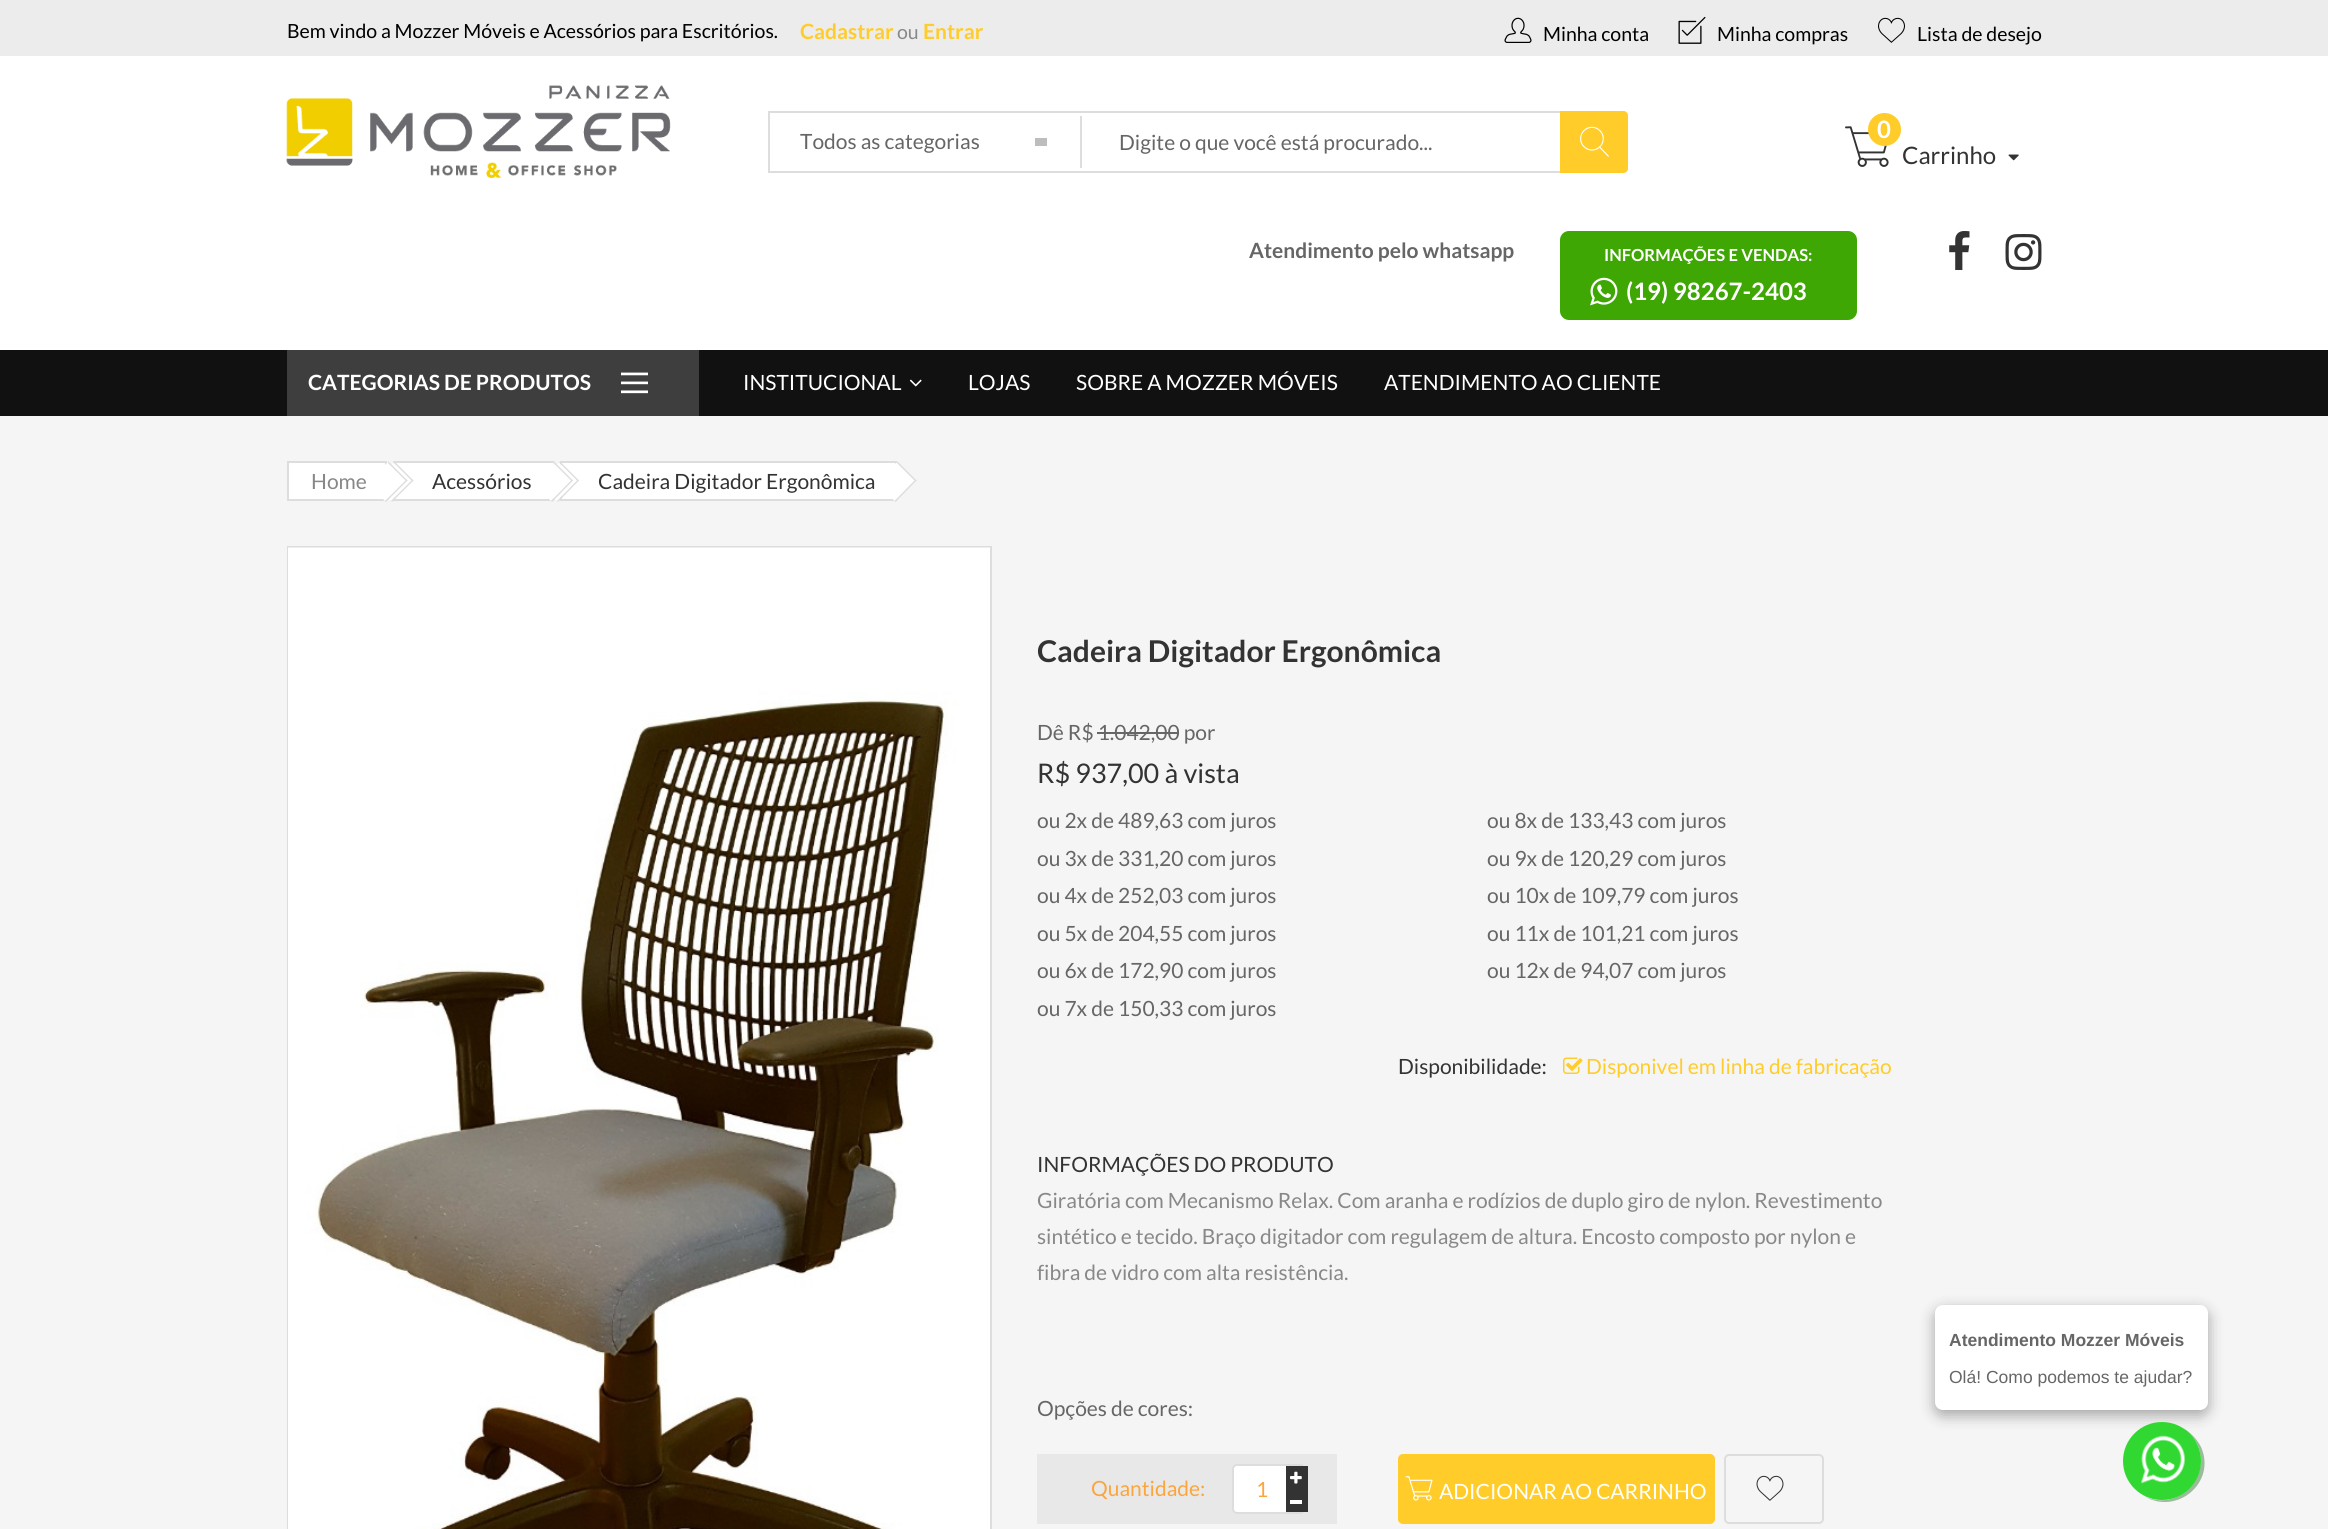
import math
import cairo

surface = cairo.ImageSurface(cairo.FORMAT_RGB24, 2328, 1529)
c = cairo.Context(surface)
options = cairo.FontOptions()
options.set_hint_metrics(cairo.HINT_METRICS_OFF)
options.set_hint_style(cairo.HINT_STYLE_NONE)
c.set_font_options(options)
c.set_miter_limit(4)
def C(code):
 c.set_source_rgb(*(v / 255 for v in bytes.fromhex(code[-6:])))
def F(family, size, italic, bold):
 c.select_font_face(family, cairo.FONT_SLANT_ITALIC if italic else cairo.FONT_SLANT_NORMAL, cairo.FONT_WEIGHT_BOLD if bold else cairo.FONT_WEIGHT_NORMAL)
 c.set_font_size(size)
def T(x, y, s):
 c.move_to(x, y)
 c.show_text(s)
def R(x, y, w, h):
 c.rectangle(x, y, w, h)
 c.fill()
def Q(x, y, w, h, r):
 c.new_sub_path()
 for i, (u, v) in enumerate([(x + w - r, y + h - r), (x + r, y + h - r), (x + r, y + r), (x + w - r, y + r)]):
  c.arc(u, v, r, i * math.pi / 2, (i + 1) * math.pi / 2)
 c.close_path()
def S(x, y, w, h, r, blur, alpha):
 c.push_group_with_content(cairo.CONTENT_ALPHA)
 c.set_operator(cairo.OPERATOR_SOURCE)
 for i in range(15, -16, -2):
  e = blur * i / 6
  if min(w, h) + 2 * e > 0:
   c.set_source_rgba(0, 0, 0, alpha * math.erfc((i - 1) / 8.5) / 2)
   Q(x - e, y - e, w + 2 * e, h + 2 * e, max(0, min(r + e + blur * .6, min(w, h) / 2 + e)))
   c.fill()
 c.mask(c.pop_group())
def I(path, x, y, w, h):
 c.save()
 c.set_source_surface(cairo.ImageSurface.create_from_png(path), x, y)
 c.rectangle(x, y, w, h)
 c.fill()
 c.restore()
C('ffffff')
c.paint()
C('ececec')
R(0,0,2328,56)
F('Lato',19.5,0,0)
C('000000')
T(287,38,'Bem vindo a Mozzer Móveis e Acessórios para Escritórios.')
F('Lato',21,0,1)
C('ffcc29')
T(800,39,'Cadastrar')
F('Lato',19.5,0,0)
C('888888')
T(897,39,'ou')
F('Lato',21,0,1)
C('ffcc29')
T(923,39,'Entrar')
I('1.png',1504,17,28,26)
F('Lato',19.5,0,0)
C('000000')
T(1543,41,'Minha conta')
I('2.png',1678,16,28,28)
T(1717,41,'Minha compras')
I('3.png',1878,17,27,26)
T(1917,41,'Lista de desejo')
I('4.png',286,85,385,94)
c.new_path()
c.move_to(769,112)
c.line_to(1623,112)
c.curve_to(1625,112,1627,114,1627,116)
c.line_to(1627,168)
c.curve_to(1627,170,1625,172,1623,172)
c.line_to(769,172)
c.close_path()
C('dddddd')
c.stroke()
C('bdbdbd')
R(1035,138,12,8)
C('dddddd')
R(1080,116,2,52)
F('Lato',21,0,0)
C('666666')
T(800,149,'Todos as categorias')
T(1119,150,'Digite o que você está procurado...')
C('ffcc29')
c.new_path()
c.move_to(1560,111)
c.line_to(1623,111)
c.curve_to(1626,111,1628,113,1628,116)
c.line_to(1628,168)
c.curve_to(1628,171,1626,173,1623,173)
c.line_to(1560,173)
c.close_path()
c.fill()
I('5.png',1580,126,29,31)
I('6.png',1845,126,44,41)
c.arc(1884.5,129.5,16.5,0,2 * math.pi)
c.fill()
F('Lato',24,0,1)
C('ffffff')
T(1877,138,'0')
F('Lato',24,0,0)
C('333333')
T(1902,164,'Carrinho')
I('7.png',2008,154,11,7)
F('Lato',21,0,1)
C('666666')
T(1249,258,'Atendimento pelo whatsapp')
C('3ea704')
Q(1560,231,297,89,9)
c.fill()
F('Lato',16.6,0,1)
C('ffffff')
T(1604,261,'INFORMAÇÕES E VENDAS:')
I('8.png',1590,277,28,29)
F('Lato',24,0,1)
T(1626,300,'(19) 98267-2403')
I('9.png',1949,231,21,39)
I('10.png',2005,234,37,36)
C('111111')
R(0,350,2328,66)
C('3e3e3e')
R(287,350,412,66)
F('Lato',21,0,1)
C('ffffff')
T(308,390,'CATEGORIAS DE PRODUTOS')
I('11.png',621,372,27,22)
F('Lato',21,0,0)
T(743,390,'INSTITUCIONAL')
I('12.png',909,379,13,8)
T(968,390,'LOJAS')
T(1076,390,'SOBRE A MOZZER MÓVEIS')
T(1384,390,'ATENDIMENTO AO CLIENTE')
C('f5f5f5')
R(0,416,2328,1113)
C('ffffff')
c.rectangle(288,462,98,38)
c.fill_preserve()
C('dddddd')
c.stroke()
C('888888')
T(311,489,'Home')
C('ffffff')
c.rectangle(394,462,159,38)
c.fill_preserve()
C('dddddd')
c.stroke()
C('ffffff')
c.new_path()
c.move_to(393.5,462.5)
c.line_to(411.5,480.5)
c.line_to(391,501)
c.line_to(373,482.5)
c.close_path()
c.fill()
C('dddddd')
c.new_path()
c.move_to(394.5,461.5)
c.line_to(413.5,480.5)
c.line_to(412.5,481.5)
c.line_to(393.5,462.5)
c.close_path()
c.fill()
c.new_path()
c.move_to(412.5,479.5)
c.line_to(413.5,480.5)
c.line_to(392,502)
c.line_to(391,501)
c.close_path()
c.fill()
C('ffffff')
c.new_path()
c.move_to(387.5,462.5)
c.line_to(405.5,480.5)
c.line_to(385,501)
c.line_to(367,482.5)
c.close_path()
c.fill()
C('dddddd')
c.new_path()
c.move_to(388.5,461.5)
c.line_to(407.5,480.5)
c.line_to(406.5,481.5)
c.line_to(387.5,462.5)
c.close_path()
c.fill()
c.new_path()
c.move_to(406.5,479.5)
c.line_to(407.5,480.5)
c.line_to(386,502)
c.line_to(385,501)
c.close_path()
c.fill()
C('333333')
T(432,489,'Acessórios')
C('ffffff')
c.rectangle(561,462,335,38)
c.fill_preserve()
C('dddddd')
c.stroke()
C('ffffff')
c.new_path()
c.move_to(559,462.5)
c.line_to(577,480.5)
c.line_to(557,501)
c.line_to(539,482.5)
c.close_path()
c.fill()
C('dddddd')
c.new_path()
c.move_to(560,461.5)
c.line_to(579,480.5)
c.line_to(578,481.5)
c.line_to(559,462.5)
c.close_path()
c.fill()
c.new_path()
c.move_to(578,479.5)
c.line_to(579,480.5)
c.line_to(558,502)
c.line_to(557,501)
c.close_path()
c.fill()
C('ffffff')
c.new_path()
c.move_to(553,462.5)
c.line_to(571,480.5)
c.line_to(551,501)
c.line_to(533,482.5)
c.close_path()
c.fill()
C('dddddd')
c.new_path()
c.move_to(554,461.5)
c.line_to(573,480.5)
c.line_to(572,481.5)
c.line_to(553,462.5)
c.close_path()
c.fill()
c.new_path()
c.move_to(572,479.5)
c.line_to(573,480.5)
c.line_to(552,502)
c.line_to(551,501)
c.close_path()
c.fill()
C('333333')
T(598,489,'Cadeira Digitador Ergonômica')
C('ffffff')
c.new_path()
c.move_to(896.5,462.5)
c.line_to(914.5,480.5)
c.line_to(894.5,501)
c.line_to(876.5,482.5)
c.close_path()
c.fill()
C('dddddd')
c.new_path()
c.move_to(897.5,461.5)
c.line_to(916.5,480.5)
c.line_to(915.5,481.5)
c.line_to(896.5,462.5)
c.close_path()
c.fill()
c.new_path()
c.move_to(915.5,479.5)
c.line_to(916.5,480.5)
c.line_to(895.5,502)
c.line_to(894.5,501)
c.close_path()
c.fill()
c.rectangle(288,547,703,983)
c.stroke()
I('13.png',288,547,702,982)
F('Lato',30,0,1)
C('333333')
T(1037,662,'Cadeira Digitador Ergonômica')
F('Lato',21,0,0)
C('666666')
T(1037,740,'Dê R$ 1.042,00 por')
R(1097,732,82,2)
F('Lato',27,0,0)
C('333333')
T(1037,783,'R$ 937,00 à vista')
F('Lato',21,0,0)
C('666666')
T(1037,828,'ou 2x de 489,63 com juros')
T(1037,866,'ou 3x de 331,20 com juros')
T(1037,903,'ou 4x de 252,03 com juros')
T(1037,941,'ou 5x de 204,55 com juros')
T(1037,978,'ou 6x de 172,90 com juros')
T(1037,1016,'ou 7x de 150,33 com juros')
T(1487,828,'ou 8x de 133,43 com juros')
T(1487,866,'ou 9x de 120,29 com juros')
T(1487,903,'ou 10x de 109,79 com juros')
T(1487,941,'ou 11x de 101,21 com juros')
T(1487,978,'ou 12x de 94,07 com juros')
C('333333')
T(1398,1074,'Disponibilidade:')
I('14.png',1563,1057,20,17)
C('ffcc29')
T(1586,1074,'Disponivel em linha de fabricação')
C('333333')
T(1037,1172,'INFORMAÇÕES DO PRODUTO')
C('888888')
T(1037,1208,'Giratória com Mecanismo Relax. Com aranha e rodízios de duplo giro de nylon. Revestimento')
T(1037,1244,'sintético e tecido. Braço digitador com regulagem de altura. Encosto composto por nylon e')
T(1037,1280,'fibra de vidro com alta resistência.')
C('666666')
T(1037,1416,'Opções de cores:')
C('e8e8e8')
R(1037,1454,300,70)
C('fca53c')
T(1091,1496,'Quantidade:')
C('ffffff')
Q(1233,1465,71,48,4)
c.fill_preserve()
C('dddddd')
c.stroke()
C('333333')
R(1286,1466,22,46)
C('ffffff')
R(1290,1500,12,4)
I('15.png',1290,1471,12,13)
C('fca53c')
T(1256,1497,'1')
C('ffcc29')
Q(1399,1455,315,68,4)
c.fill_preserve()
c.stroke()
I('16.png',1405,1476,28,25)
C('ffffff')
T(1439,1499,'ADICIONAR AO CARRINHO')
Q(1725,1455,98,68,4)
C('dddddd')
c.stroke()
I('17.png',1756,1475,28,26)
C('000000')
S(1935,1310,273,105,8,7.5,.34)
C('ffffff')
Q(1935,1305,273,105,8)
c.fill()
F('Liberation Sans',17.5,0,1)
C('666666')
T(1949,1346,'Atendimento Mozzer Móveis')
F('Liberation Sans',17.5,0,0)
T(1949,1383,'Olá! Como podemos te ajudar?')
C('9bbc9b')
c.new_path()
c.move_to(2144,1496)
c.curve_to(2176,1516,2217,1483,2201,1447)
c.curve_to(2197,1439,2190,1432,2183,1428)
c.curve_to(2189,1433,2195,1439,2198,1446)
c.curve_to(2211,1480,2175,1512,2144,1496)
c.close_path()
c.fill()
C('31d831')
c.arc(2162,1461,39,0,2 * math.pi)
c.fill()
I('18.png',2141,1435,44,49)
surface.write_to_png('o.png')
